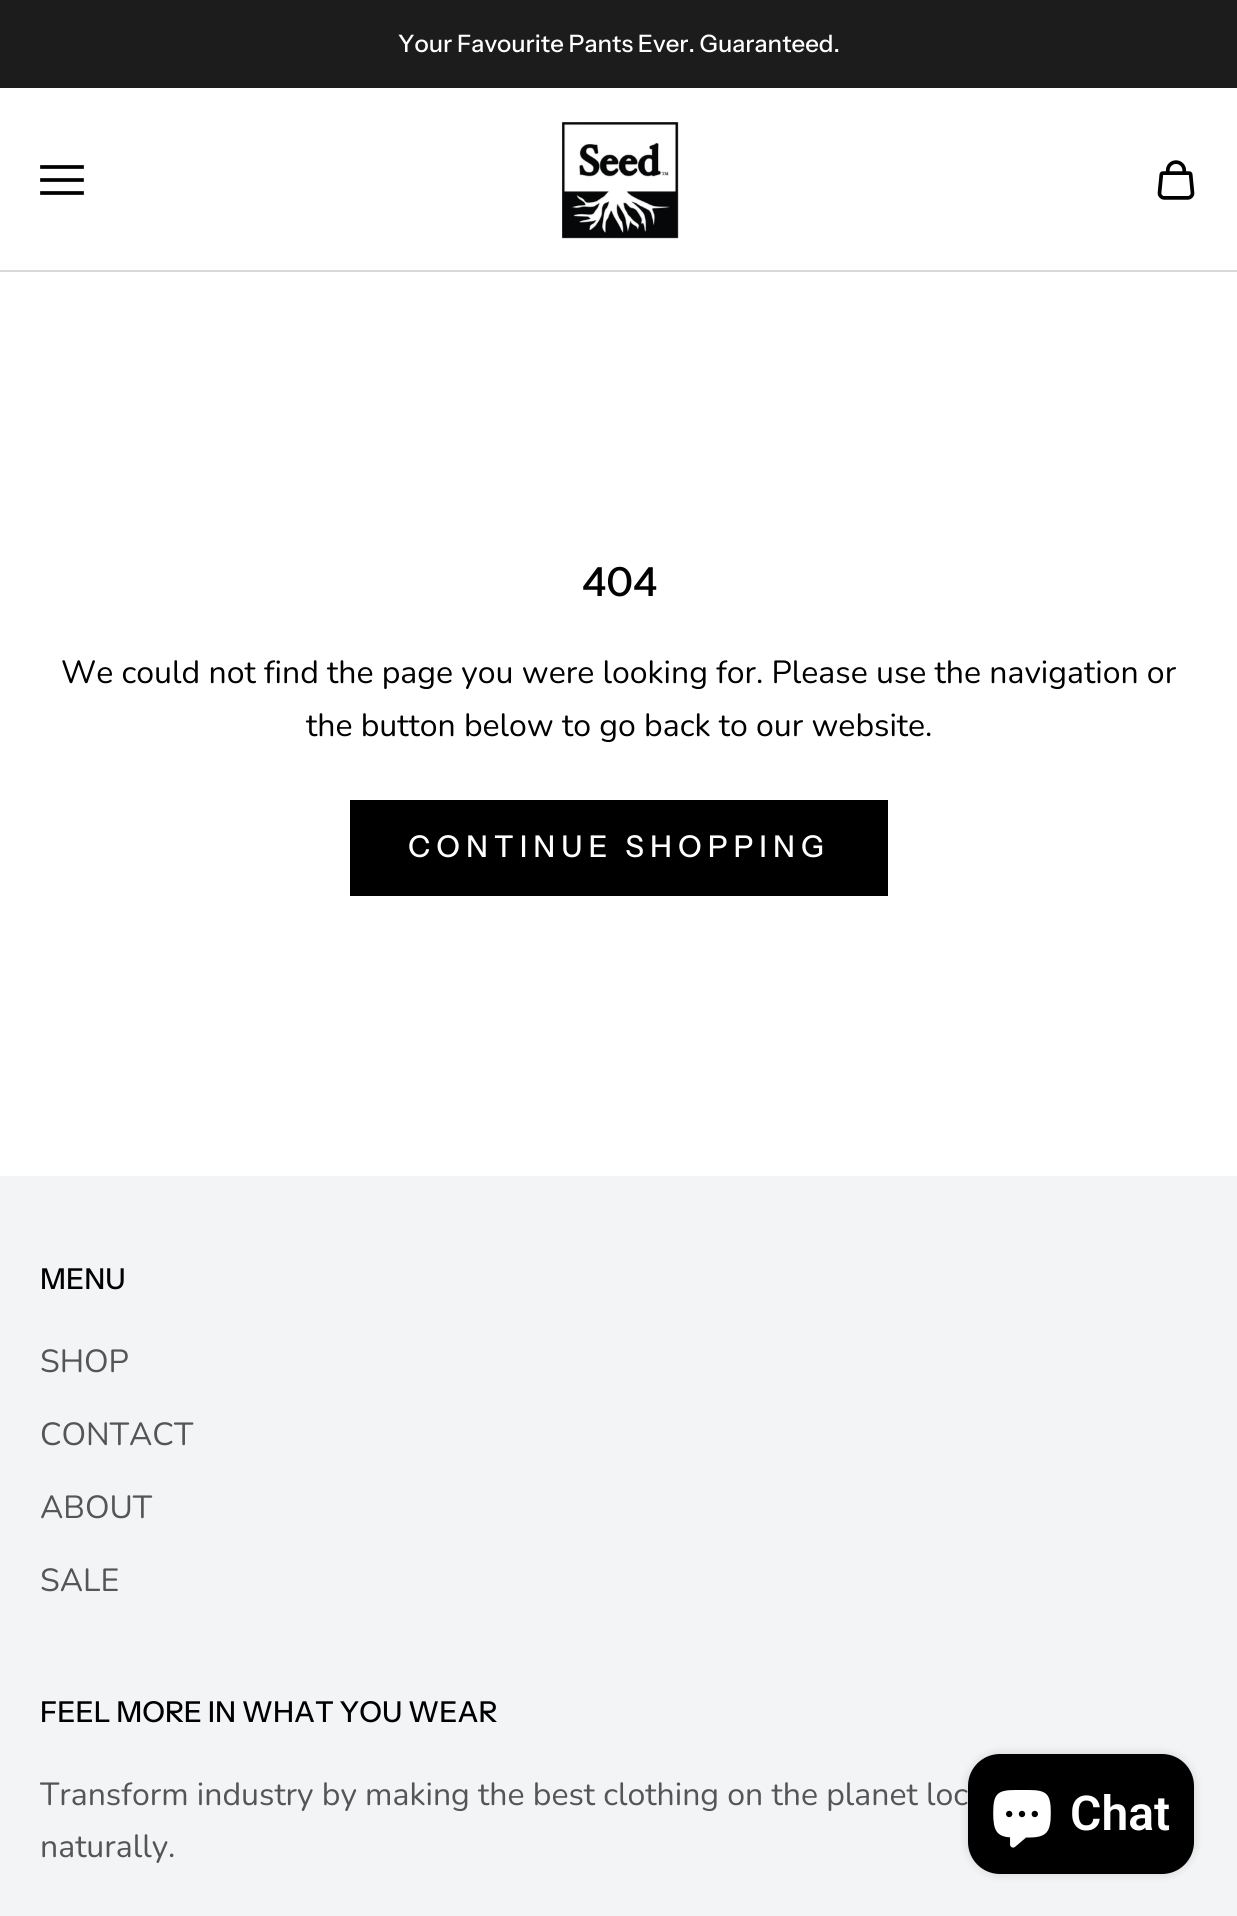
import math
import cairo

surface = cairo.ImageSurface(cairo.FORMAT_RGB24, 1237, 1916)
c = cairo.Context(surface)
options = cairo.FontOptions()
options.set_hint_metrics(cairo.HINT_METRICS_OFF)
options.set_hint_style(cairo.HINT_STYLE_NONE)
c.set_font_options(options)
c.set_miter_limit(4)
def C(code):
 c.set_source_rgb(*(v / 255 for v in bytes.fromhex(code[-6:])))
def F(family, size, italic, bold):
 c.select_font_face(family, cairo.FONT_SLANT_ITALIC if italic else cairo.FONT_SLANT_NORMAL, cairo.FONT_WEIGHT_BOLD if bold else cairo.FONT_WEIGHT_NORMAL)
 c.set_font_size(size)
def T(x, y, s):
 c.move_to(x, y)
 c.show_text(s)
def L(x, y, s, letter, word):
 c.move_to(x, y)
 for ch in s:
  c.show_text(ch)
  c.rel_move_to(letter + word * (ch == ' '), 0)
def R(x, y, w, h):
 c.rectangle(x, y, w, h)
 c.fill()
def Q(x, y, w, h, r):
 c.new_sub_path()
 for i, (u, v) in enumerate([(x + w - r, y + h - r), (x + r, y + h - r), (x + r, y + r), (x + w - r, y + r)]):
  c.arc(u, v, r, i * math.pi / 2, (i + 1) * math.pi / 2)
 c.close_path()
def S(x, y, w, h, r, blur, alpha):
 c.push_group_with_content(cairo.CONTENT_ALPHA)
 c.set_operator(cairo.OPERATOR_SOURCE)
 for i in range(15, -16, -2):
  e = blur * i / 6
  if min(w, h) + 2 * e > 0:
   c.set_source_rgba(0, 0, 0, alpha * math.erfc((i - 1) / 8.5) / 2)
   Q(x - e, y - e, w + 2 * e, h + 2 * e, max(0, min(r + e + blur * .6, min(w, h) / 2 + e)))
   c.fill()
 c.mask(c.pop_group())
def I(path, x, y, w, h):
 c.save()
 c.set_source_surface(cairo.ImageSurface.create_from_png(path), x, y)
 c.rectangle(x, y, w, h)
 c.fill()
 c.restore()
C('ffffff')
c.paint()
C('1c1c1c')
R(0,0,1237,88)
F('Instrument Sans Medium',24,0,0)
C('ffffff')
T(398,52,'Your Favourite Pants Ever. Guaranteed.')
C('d9d9d9')
R(0,270,1237,2)
c.new_path()
c.move_to(42,193)
c.line_to(82,193)
c.move_to(42,180)
c.line_to(82,180)
c.move_to(42,167)
c.line_to(82,167)
C('000000')
c.set_line_width(3.7)
c.set_line_cap(cairo.LINE_CAP_SQUARE)
c.stroke()
I('1.png',561,122,118,117)
I('2.png',1157,160,38,40)
F('Instrument Sans Medium',40,0,0)
T(582,596,'404')
F('Nunito',32,0,0)
T(61,683,'We could not find the page you were looking for. Please use the navigation or')
T(306,736,'the button below to go back to our website.')
c.rectangle(351,801,536,94)
c.fill_preserve()
c.set_line_width(2)
c.set_line_cap(cairo.LINE_CAP_BUTT)
c.stroke()
F('Instrument Sans Medium',30,0,0)
C('ffffff')
L(408,857,'CONTINUE SHOPPING',6,0)
C('f3f4f6')
R(0,1176,1237,740)
F('Instrument Sans Medium',28.75,0,0)
C('000000')
T(40,1289,'MENU')
F('Nunito',32,0,0)
C('555556')
T(40,1372,'SHOP')
T(40,1445,'CONTACT')
T(40,1518,'ABOUT')
T(40,1591,'SALE')
F('Instrument Sans Medium',28.75,0,0)
C('000000')
T(40,1722,'FEEL MORE IN WHAT YOU WEAR')
F('Nunito',32,0,0)
C('555556')
T(40,1805,'Transform industry by making the best clothing on the planet loc')
T(40,1857,'naturally.')
C('000000')
S(968,1754,226,120,32,5,.15)
C('000000')
Q(968,1754,226,120,32)
c.fill()
I('3.png',993,1790,58,58)
F('Roboto SemiBold',48,0,0)
C('ffffff')
T(1070,1830,'Chat')
surface.write_to_png('o.png')
